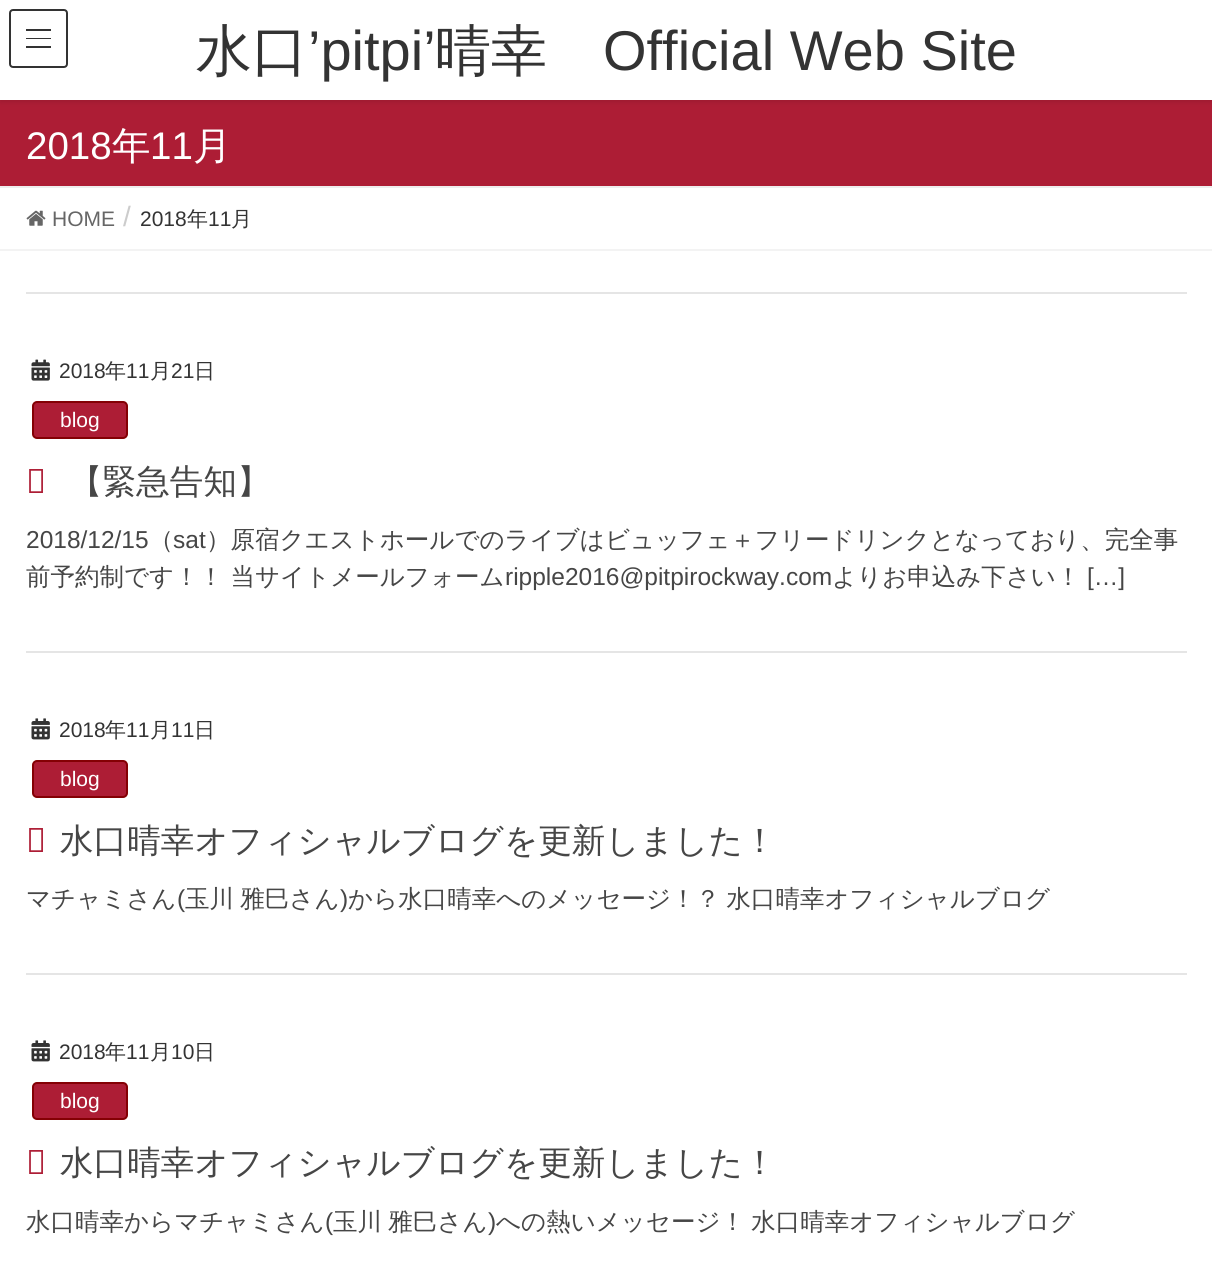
import math
import cairo

surface = cairo.ImageSurface(cairo.FORMAT_RGB24, 1212, 1272)
c = cairo.Context(surface)
options = cairo.FontOptions()
options.set_hint_metrics(cairo.HINT_METRICS_OFF)
options.set_hint_style(cairo.HINT_STYLE_NONE)
c.set_font_options(options)
c.set_miter_limit(4)
def C(code):
 c.set_source_rgb(*(v / 255 for v in bytes.fromhex(code[-6:])))
def F(family, size, italic, bold):
 c.select_font_face(family, cairo.FONT_SLANT_ITALIC if italic else cairo.FONT_SLANT_NORMAL, cairo.FONT_WEIGHT_BOLD if bold else cairo.FONT_WEIGHT_NORMAL)
 c.set_font_size(size)
def T(x, y, s):
 c.move_to(x, y)
 c.show_text(s)
def L(x, y, s, letter, word):
 c.move_to(x, y)
 for ch in s:
  c.show_text(ch)
  c.rel_move_to(letter + word * (ch == ' '), 0)
def R(x, y, w, h):
 c.rectangle(x, y, w, h)
 c.fill()
def Q(x, y, w, h, r):
 c.new_sub_path()
 for i, (u, v) in enumerate([(x + w - r, y + h - r), (x + r, y + h - r), (x + r, y + r), (x + w - r, y + r)]):
  c.arc(u, v, r, i * math.pi / 2, (i + 1) * math.pi / 2)
 c.close_path()
def S(x, y, w, h, r, blur, alpha):
 c.push_group_with_content(cairo.CONTENT_ALPHA)
 c.set_operator(cairo.OPERATOR_SOURCE)
 for i in range(15, -16, -2):
  e = blur * i / 6
  if min(w, h) + 2 * e > 0:
   c.set_source_rgba(0, 0, 0, alpha * math.erfc((i - 1) / 8.5) / 2)
   Q(x - e, y - e, w + 2 * e, h + 2 * e, max(0, min(r + e + blur * .6, min(w, h) / 2 + e)))
   c.fill()
 c.mask(c.pop_group())
def I(path, x, y, w, h):
 c.save()
 c.set_source_surface(cairo.ImageSurface.create_from_png(path), x, y)
 c.rectangle(x, y, w, h)
 c.fill()
 c.restore()
C('ffffff')
c.paint()
C('ad1d35')
R(0,100,1212,86)
C('000000')
S(0,2,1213,100,0,2.5,.1)
C('ffffff')
R(0,0,1212,100)
C('333333')
R(26,29,25,2)
R(26,38,25,1)
R(26,46,25,2)
Q(10,10,57,57,3)
c.stroke()
F('WenQuanYi Zen Hei Medium',56,0,0)
T(196,70,'水口')
F('Liberation Sans',56,0,0)
T(308,70,'’pitpi’')
F('WenQuanYi Zen Hei Medium',56,0,0)
T(435,70,'晴幸')
F('Liberation Sans',56,0,0)
T(603,70,'Official Web Site')
C('eeeeee')
R(0,186,1212,2)
F('Liberation Sans',38.5,0,0)
C('ffffff')
T(26,159,'2018')
F('WenQuanYi Zen Hei Medium',38.5,0,0)
T(112,159,'年')
F('Liberation Sans',38.5,0,0)
T(150,159,'11')
F('WenQuanYi Zen Hei Medium',38.5,0,0)
T(193,159,'月')
C('f3f3f3')
R(0,249,1212,2)
I('1.png',26,210,20,16)
F('Liberation Sans',21,0,0)
C('666666')
T(52,226,'HOME')
F('Liberation Sans',28,0,0)
C('cccccc')
T(123,226,'/')
F('Liberation Sans',21,0,0)
C('333333')
T(140,226,'2018')
F('WenQuanYi Zen Hei Medium',21,0,0)
T(187,226,'年')
F('Liberation Sans',21,0,0)
T(208,226,'11')
F('WenQuanYi Zen Hei Medium',21,0,0)
T(231,226,'月')
C('e5e5e5')
R(26,292,1161,2)
R(26,651,1161,2)
I('2.png',31,359,19,22)
F('Liberation Sans',21,0,0)
C('333333')
T(59,378,'2018')
F('WenQuanYi Zen Hei Medium',21,0,0)
T(105,378,'年')
F('Liberation Sans',21,0,0)
T(126,378,'11')
F('WenQuanYi Zen Hei Medium',21,0,0)
T(150,378,'月')
F('Liberation Sans',21,0,0)
T(171,378,'21')
F('WenQuanYi Zen Hei Medium',21,0,0)
T(194,378,'日')
C('ad1d35')
Q(33,402,94,36,4)
c.fill_preserve()
C('840004')
c.stroke()
F('Liberation Sans',21,0,0)
C('ffffff')
T(60,427,'blog')
F('Noto Sans',33.6,0,0)
C('ad1d35')
T(26,493,'▼')
F('WenQuanYi Zen Hei Medium',33.6,0,0)
C('464646')
T(69,493,'【緊急告知】')
F('Liberation Sans',24.5,0,0)
T(26,548,'2018/12/15')
F('WenQuanYi Zen Hei Medium',24.5,0,0)
T(149,548,'（')
F('Liberation Sans',24.5,0,0)
T(173,548,'sat')
F('WenQuanYi Zen Hei Medium',24.5,0,0)
T(206,548,'）原宿クエストホールでのライブはビュッフェ＋フリードリンクとなっており、完全事')
T(26,585,'前予約制です！！ 当サイトメールフォーム')
F('Liberation Sans',24.5,0,0)
T(505,585,'ripple2016@pitpirockway.com')
F('WenQuanYi Zen Hei Medium',24.5,0,0)
T(832,585,'よりお申込み下さい！')
F('Liberation Sans',24.5,0,0)
T(1087,585,'[…]')
C('e5e5e5')
R(26,973,1161,2)
I('3.png',31,718,19,22)
F('Liberation Sans',21,0,0)
C('333333')
T(59,737,'2018')
F('WenQuanYi Zen Hei Medium',21,0,0)
T(105,737,'年')
F('Liberation Sans',21,0,0)
T(126,737,'11')
F('WenQuanYi Zen Hei Medium',21,0,0)
T(150,737,'月')
F('Liberation Sans',21,0,0)
T(171,737,'11')
F('WenQuanYi Zen Hei Medium',21,0,0)
T(194,737,'日')
C('ad1d35')
Q(33,761,94,36,4)
c.fill_preserve()
C('840004')
c.stroke()
F('Liberation Sans',21,0,0)
C('ffffff')
T(60,786,'blog')
F('Noto Sans',33.6,0,0)
C('ad1d35')
T(26,852,'▼')
F('WenQuanYi Zen Hei Medium',33.6,0,0)
C('464646')
T(60,852,'水口晴幸オフィシャルブログを更新しました！')
F('WenQuanYi Zen Hei Medium',24.5,0,0)
T(26,907,'マチャミさん')
F('Liberation Sans',24.5,0,0)
T(177,907,'(')
F('WenQuanYi Zen Hei Medium',24.5,0,0)
L(185,907,'玉川 雅巳さん',0,-1)
F('Liberation Sans',24.5,0,0)
T(340,907,')')
F('WenQuanYi Zen Hei Medium',24.5,0,0)
L(348,907,'から水口晴幸へのメッセージ！？ 水口晴幸オフィシャルブログ',0,-1)
I('3.png',31,1040,19,22)
F('Liberation Sans',21,0,0)
C('333333')
T(59,1059,'2018')
F('WenQuanYi Zen Hei Medium',21,0,0)
T(105,1059,'年')
F('Liberation Sans',21,0,0)
T(126,1059,'11')
F('WenQuanYi Zen Hei Medium',21,0,0)
T(150,1059,'月')
F('Liberation Sans',21,0,0)
T(171,1059,'10')
F('WenQuanYi Zen Hei Medium',21,0,0)
T(194,1059,'日')
C('ad1d35')
Q(33,1083,94,36,4)
c.fill_preserve()
C('840004')
c.stroke()
F('Liberation Sans',21,0,0)
C('ffffff')
T(60,1108,'blog')
F('Noto Sans',33.6,0,0)
C('ad1d35')
T(26,1174,'▼')
F('WenQuanYi Zen Hei Medium',33.6,0,0)
C('464646')
T(60,1174,'水口晴幸オフィシャルブログを更新しました！')
F('WenQuanYi Zen Hei Medium',24.5,0,0)
T(26,1230,'水口晴幸からマチャミさん')
F('Liberation Sans',24.5,0,0)
T(325,1230,'(')
F('WenQuanYi Zen Hei Medium',24.5,0,0)
L(333,1230,'玉川 雅巳さん',0,-1)
F('Liberation Sans',24.5,0,0)
T(488,1230,')')
F('WenQuanYi Zen Hei Medium',24.5,0,0)
L(496,1230,'への熱いメッセージ！ 水口晴幸オフィシャルブログ',0,-1)
surface.write_to_png('o.png')
